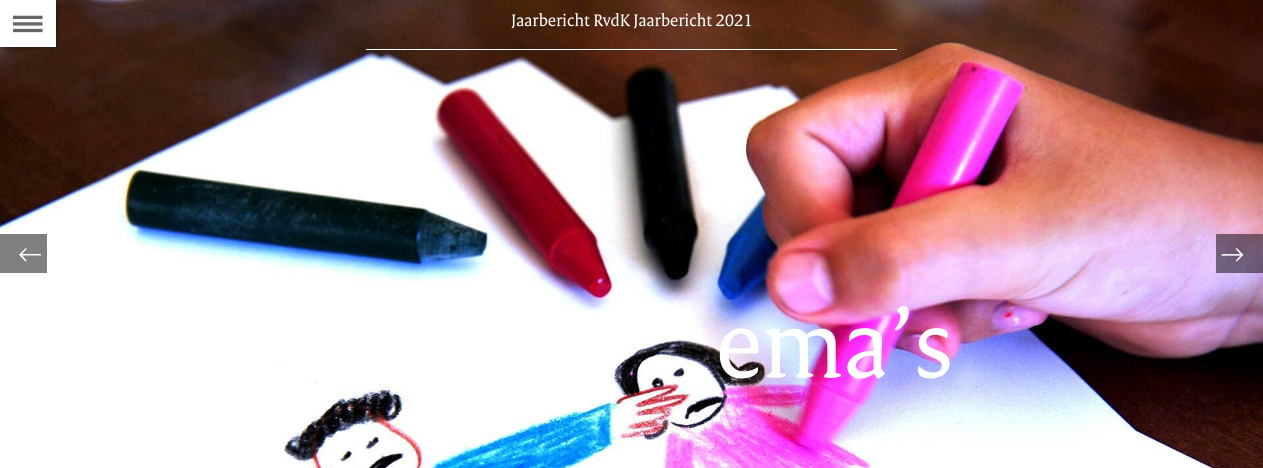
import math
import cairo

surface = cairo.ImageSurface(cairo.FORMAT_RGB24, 1263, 468)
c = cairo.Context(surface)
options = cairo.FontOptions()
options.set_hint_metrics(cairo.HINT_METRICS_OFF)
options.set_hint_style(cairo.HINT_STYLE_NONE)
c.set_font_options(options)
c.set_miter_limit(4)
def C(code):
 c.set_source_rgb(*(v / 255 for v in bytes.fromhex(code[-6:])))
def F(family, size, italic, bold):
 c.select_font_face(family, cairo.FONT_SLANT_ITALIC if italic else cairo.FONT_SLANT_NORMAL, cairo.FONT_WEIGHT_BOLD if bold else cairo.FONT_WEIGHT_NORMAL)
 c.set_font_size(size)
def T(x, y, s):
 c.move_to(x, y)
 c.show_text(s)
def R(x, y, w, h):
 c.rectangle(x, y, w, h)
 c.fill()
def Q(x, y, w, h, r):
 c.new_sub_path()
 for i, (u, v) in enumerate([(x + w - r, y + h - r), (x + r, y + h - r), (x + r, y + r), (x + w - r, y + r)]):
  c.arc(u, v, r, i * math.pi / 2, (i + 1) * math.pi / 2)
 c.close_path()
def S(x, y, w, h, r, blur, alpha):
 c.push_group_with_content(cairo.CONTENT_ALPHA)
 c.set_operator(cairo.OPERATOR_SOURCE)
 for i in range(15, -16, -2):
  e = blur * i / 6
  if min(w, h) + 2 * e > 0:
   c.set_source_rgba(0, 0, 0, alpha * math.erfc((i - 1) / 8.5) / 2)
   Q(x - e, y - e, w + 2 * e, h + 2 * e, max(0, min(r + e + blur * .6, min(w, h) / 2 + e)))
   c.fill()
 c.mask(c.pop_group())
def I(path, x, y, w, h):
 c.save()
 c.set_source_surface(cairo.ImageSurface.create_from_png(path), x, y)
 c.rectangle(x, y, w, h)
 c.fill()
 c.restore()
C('ffffff')
c.paint()
I('1.png',0,0,1263,468)
C('000000')
S(2,2,56,47,0,1.5,.2)
C('ffffff')
R(0,0,56,47)
I('2.png',12,15,31,18)
R(366,49,531,1)
F('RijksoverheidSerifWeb',18,0,0)
T(511,26,'Jaarbericht RvdK Jaarbericht 2021')
F('RijksoverheidSerifWeb',101,0,0)
T(716,377,'ema’s')
C('7f7f7f')
R(0,234,47,39)
I('3.png',19,248,22,14)
c.set_source_rgba(0,0,0,0.5)
R(1216,234,47,39)
I('4.png',1221,248,23,14)
surface.write_to_png('o.png')
